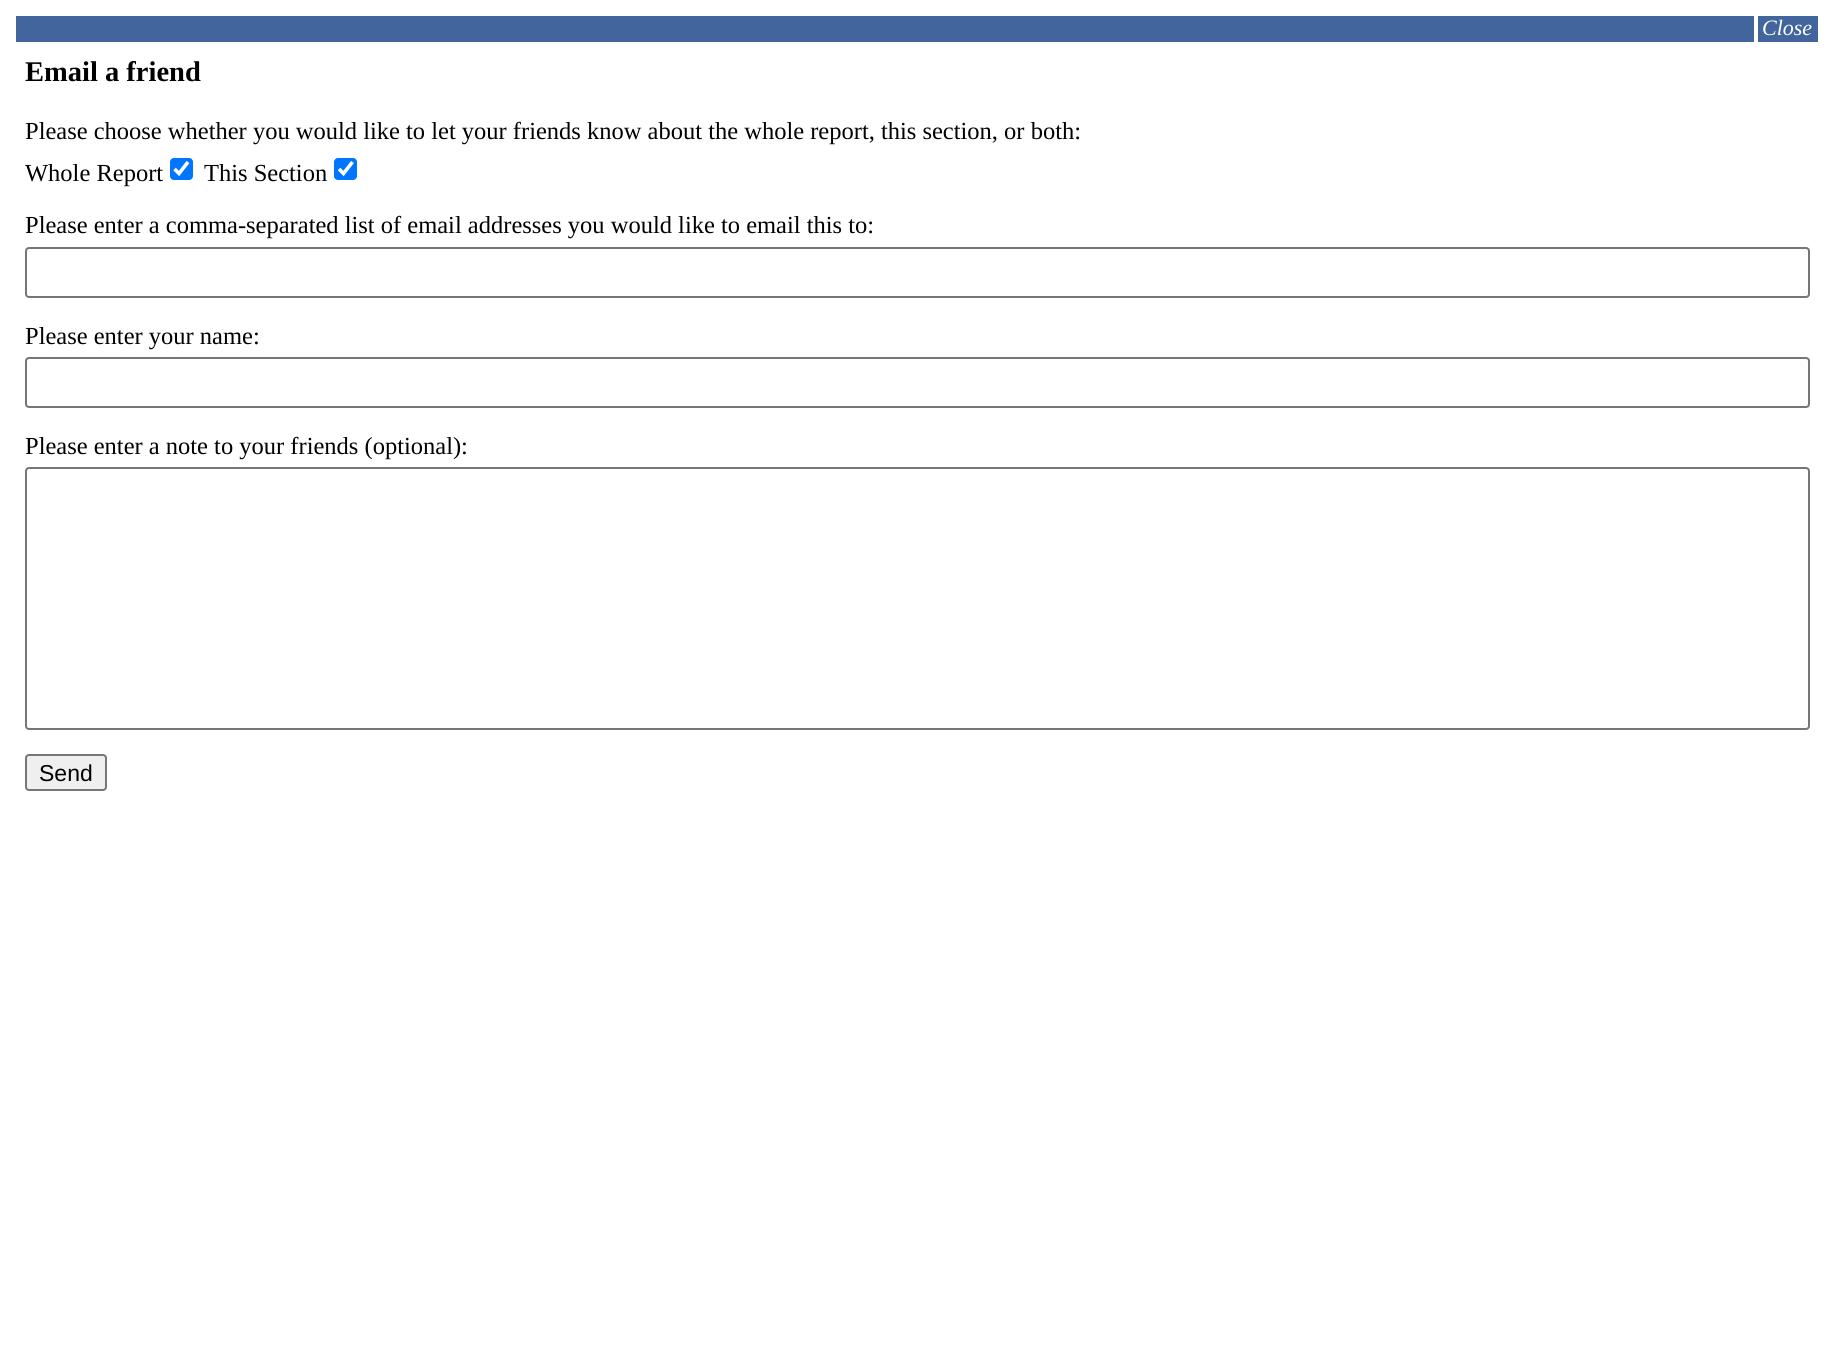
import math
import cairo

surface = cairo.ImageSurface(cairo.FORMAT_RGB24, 1833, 1347)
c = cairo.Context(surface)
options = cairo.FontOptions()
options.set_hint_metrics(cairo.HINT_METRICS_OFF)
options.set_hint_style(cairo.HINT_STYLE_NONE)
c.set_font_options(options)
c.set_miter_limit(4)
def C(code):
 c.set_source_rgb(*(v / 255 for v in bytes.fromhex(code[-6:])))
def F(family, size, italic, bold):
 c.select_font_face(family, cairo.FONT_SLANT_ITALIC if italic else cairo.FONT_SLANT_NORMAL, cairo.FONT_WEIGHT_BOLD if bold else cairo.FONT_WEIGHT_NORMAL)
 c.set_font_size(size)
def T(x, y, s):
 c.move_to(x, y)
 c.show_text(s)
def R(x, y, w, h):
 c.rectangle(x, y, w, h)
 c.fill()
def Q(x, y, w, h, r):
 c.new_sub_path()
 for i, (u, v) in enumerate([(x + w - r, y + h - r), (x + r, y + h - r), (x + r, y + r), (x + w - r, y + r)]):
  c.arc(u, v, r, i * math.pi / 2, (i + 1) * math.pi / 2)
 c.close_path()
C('ffffff')
c.paint()
C('41659c')
R(16,16,1802,26)
F('Liberation Serif',22,1,0)
C('ffffff')
T(1762,35,'Close')
R(1754,14,4,28)
F('Liberation Serif',28.5,0,1)
C('000000')
T(25,81,'Email a friend')
F('Liberation Serif',24.5,0,0)
T(25,139,'Please choose whether you would like to let your friends know about the whole report, this section, or both:')
T(25,181,'Whole Report')
C('0075ff')
Q(170,158,23,22,4)
c.fill()
c.new_path()
c.move_to(174.5,169)
c.line_to(179,173.5)
c.line_to(188,162)
C('ffffff')
c.set_line_width(3.6)
c.stroke()
C('000000')
T(204,181,'This Section')
C('0075ff')
Q(334,158,23,22,4)
c.fill()
c.new_path()
c.move_to(339,169)
c.line_to(343.5,173.5)
c.line_to(352.5,162)
C('ffffff')
c.stroke()
C('000000')
T(25,233,'Please enter a comma-separated list of email addresses you would like to email this to:')
Q(26,248,1783,49,3)
C('767676')
c.set_line_width(2)
c.stroke()
C('000000')
T(25,344,'Please enter your name:')
Q(26,358,1783,49,3)
C('767676')
c.stroke()
C('000000')
T(25,454,'Please enter a note to your friends (optional):')
Q(26,468,1783,261,3)
C('767676')
c.stroke()
C('efefef')
Q(26,755,80,35,3)
c.fill_preserve()
C('767676')
c.stroke()
F('Liberation Sans',23,0,0)
C('000000')
T(39,781,'Send')
surface.write_to_png('o.png')
